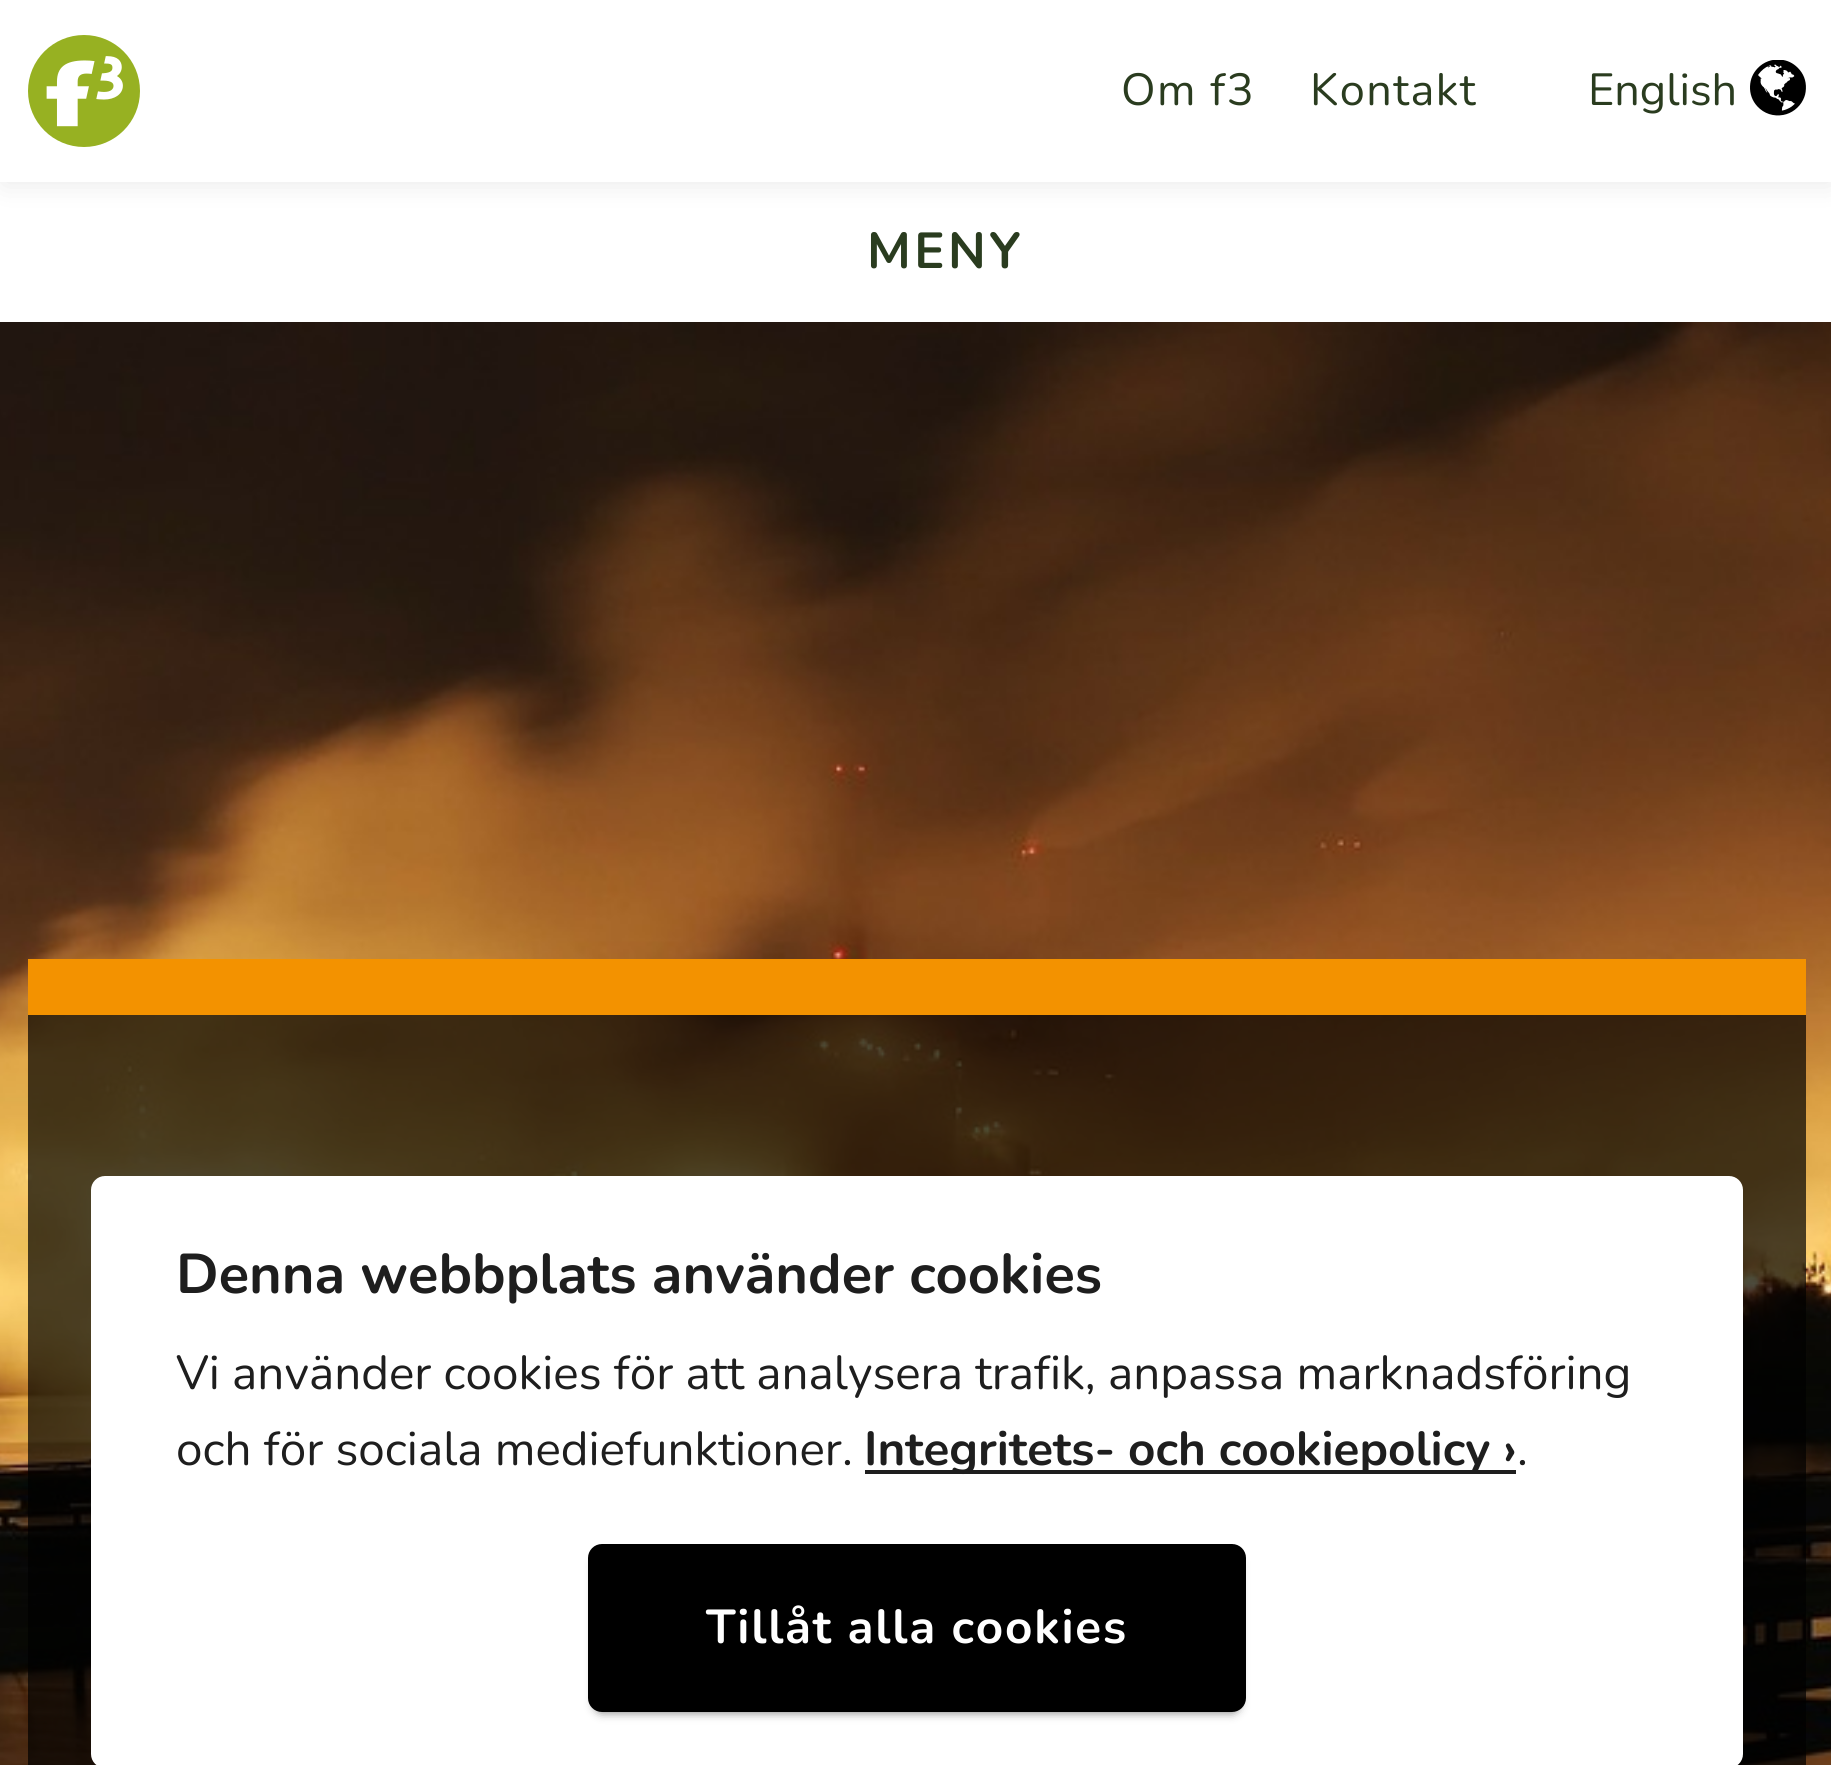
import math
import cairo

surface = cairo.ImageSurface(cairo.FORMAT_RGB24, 1831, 1765)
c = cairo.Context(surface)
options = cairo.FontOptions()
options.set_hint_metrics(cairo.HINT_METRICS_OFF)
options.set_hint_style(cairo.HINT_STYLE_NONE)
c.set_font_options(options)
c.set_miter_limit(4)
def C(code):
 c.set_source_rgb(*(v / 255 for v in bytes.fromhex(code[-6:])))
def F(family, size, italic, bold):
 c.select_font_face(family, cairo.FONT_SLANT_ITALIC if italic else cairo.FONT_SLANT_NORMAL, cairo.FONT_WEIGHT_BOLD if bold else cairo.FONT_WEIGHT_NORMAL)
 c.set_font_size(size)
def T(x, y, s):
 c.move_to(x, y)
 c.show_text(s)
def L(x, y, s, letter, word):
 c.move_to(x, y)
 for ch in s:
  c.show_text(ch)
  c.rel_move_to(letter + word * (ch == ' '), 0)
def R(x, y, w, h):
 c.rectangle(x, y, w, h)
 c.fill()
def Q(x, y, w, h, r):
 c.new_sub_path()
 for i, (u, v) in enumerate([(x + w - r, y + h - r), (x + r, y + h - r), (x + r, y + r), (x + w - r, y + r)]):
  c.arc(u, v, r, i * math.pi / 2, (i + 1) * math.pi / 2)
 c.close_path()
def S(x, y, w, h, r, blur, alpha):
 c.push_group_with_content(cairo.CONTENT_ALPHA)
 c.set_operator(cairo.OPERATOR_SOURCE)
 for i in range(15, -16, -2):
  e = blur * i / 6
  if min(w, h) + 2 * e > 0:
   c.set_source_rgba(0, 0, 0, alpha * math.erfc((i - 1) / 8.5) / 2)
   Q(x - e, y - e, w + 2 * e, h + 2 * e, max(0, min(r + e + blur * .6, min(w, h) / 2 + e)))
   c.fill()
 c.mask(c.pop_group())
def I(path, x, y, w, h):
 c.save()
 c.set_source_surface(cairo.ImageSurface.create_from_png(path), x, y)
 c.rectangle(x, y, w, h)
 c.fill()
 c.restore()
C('ffffff')
c.paint()
C('000000')
S(4,7,1827,175,0,14,.1)
C('ffffff')
R(0,0,1831,182)
I('1.png',28,35,112,112)
F('Nunito',45,0,0)
C('2a3c1f')
L(1121,105,'Om f3',1.5,0)
L(1310,105,'Kontakt',1.5,0)
T(1588,105,'English')
I('2.png',1750,60,56,56)
F('Nunito',50.5,0,1)
L(867,268,'MENY',3.5,0)
I('3.png',0,322,1831,1443)
c.set_source_rgba(0,0,0,0.7)
R(28,1015,1778,750)
C('f39200')
R(28,959,1778,56)
C('ffffff')
Q(91,1176,1652,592,14)
c.fill()
F('Nunito',56,0,1)
C('1e1e1e')
T(176,1293,'Denna webbplats använder cookies')
F('Nunito',47.6,0,0)
T(176,1389,'Vi använder cookies för att analysera trafik, anpassa marknadsföring')
T(176,1465,'och för sociala mediefunktioner.')
R(865,1470,651,4)
F('Nunito',47.6,0,1)
T(864,1465,'Integritets- och cookiepolicy ›')
F('Nunito',47.6,0,0)
T(1517,1465,'.')
C('000000')
S(595,1558,644,154,7,5,.55)
C('000000')
Q(588,1544,658,168,14)
c.fill()
F('Nunito',47.6,0,1)
C('ffffff')
L(706,1643,'Tillåt alla cookies',1.75,0)
surface.write_to_png('o.png')
